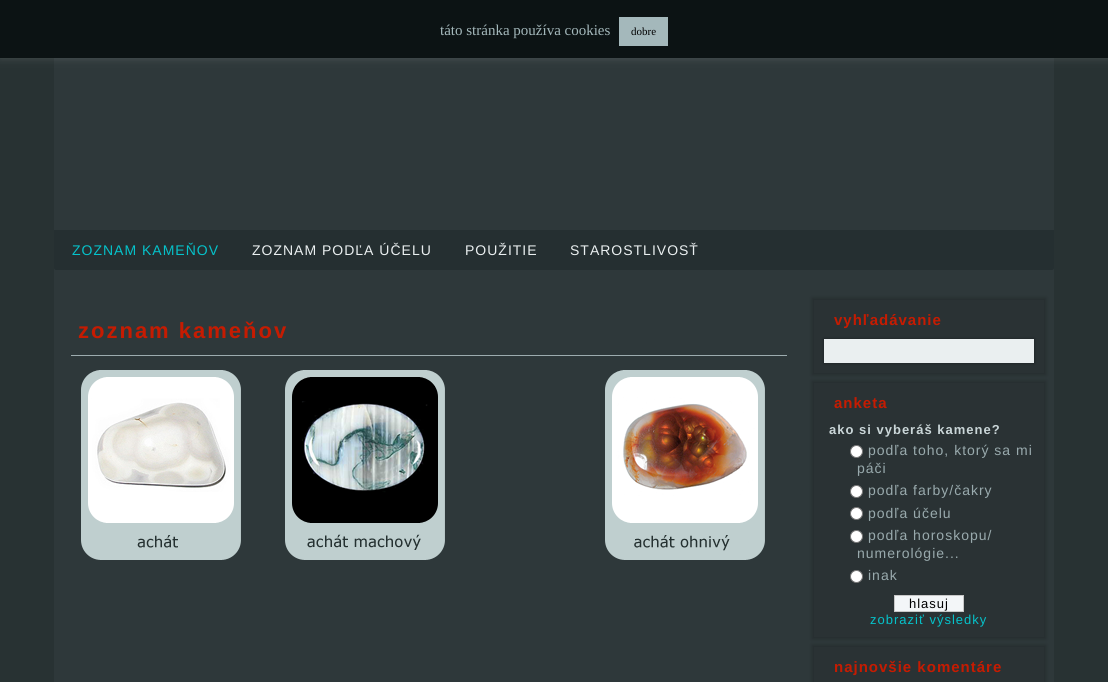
import math
import cairo

surface = cairo.ImageSurface(cairo.FORMAT_RGB24, 1108, 682)
c = cairo.Context(surface)
options = cairo.FontOptions()
options.set_hint_metrics(cairo.HINT_METRICS_OFF)
options.set_hint_style(cairo.HINT_STYLE_NONE)
c.set_font_options(options)
c.set_miter_limit(4)
def C(code):
 c.set_source_rgb(*(v / 255 for v in bytes.fromhex(code[-6:])))
def F(family, size, italic, bold):
 c.select_font_face(family, cairo.FONT_SLANT_ITALIC if italic else cairo.FONT_SLANT_NORMAL, cairo.FONT_WEIGHT_BOLD if bold else cairo.FONT_WEIGHT_NORMAL)
 c.set_font_size(size)
def T(x, y, s):
 c.move_to(x, y)
 c.show_text(s)
def L(x, y, s, letter, word):
 c.move_to(x, y)
 for ch in s:
  c.show_text(ch)
  c.rel_move_to(letter + word * (ch == ' '), 0)
def R(x, y, w, h):
 c.rectangle(x, y, w, h)
 c.fill()
def Q(x, y, w, h, r):
 c.new_sub_path()
 for i, (u, v) in enumerate([(x + w - r, y + h - r), (x + r, y + h - r), (x + r, y + r), (x + w - r, y + r)]):
  c.arc(u, v, r, i * math.pi / 2, (i + 1) * math.pi / 2)
 c.close_path()
def S(x, y, w, h, r, blur, alpha):
 c.push_group_with_content(cairo.CONTENT_ALPHA)
 c.set_operator(cairo.OPERATOR_SOURCE)
 for i in range(15, -16, -2):
  e = blur * i / 6
  if min(w, h) + 2 * e > 0:
   c.set_source_rgba(0, 0, 0, alpha * math.erfc((i - 1) / 8.5) / 2)
   Q(x - e, y - e, w + 2 * e, h + 2 * e, max(0, min(r + e + blur * .6, min(w, h) / 2 + e)))
   c.fill()
 c.mask(c.pop_group())
def I(path, x, y, w, h):
 c.save()
 c.set_source_surface(cairo.ImageSurface.create_from_png(path), x, y)
 c.rectangle(x, y, w, h)
 c.fill()
 c.restore()
C('283233')
c.paint()
C('2e383a')
R(54,58,1000,624)
C('acabab')
S(0,-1,1108,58,0,5,.3)
C('0c1314')
R(0,0,1108,58)
F('Liberation Serif',15,0,0)
C('a4b8bb')
T(440,35,'táto stránka používa cookies')
R(619,17,49,29)
F('Liberation Serif',11,0,0)
C('000000')
T(631,35,'dobre')
C('252f31')
c.new_path()
c.move_to(54,230)
c.line_to(1054,230)
c.line_to(1054,268)
c.curve_to(1054,269,1053,270,1052,270)
c.line_to(56,270)
c.curve_to(55,270,54,269,54,268)
c.close_path()
c.fill()
F('Liberation Sans',14,0,0)
C('05c2ca')
L(72,255,'ZOZNAM KAMEŇOV',1,0)
C('eaeff0')
L(252,255,'ZOZNAM PODĽA ÚČELU',1,0)
L(465,255,'POUŽITIE',1,0)
L(570,255,'STAROSTLIVOSŤ',1,0)
C('9dacaf')
R(71,355,716,1)
F('Liberation Sans',22,0,1)
C('c61b01')
L(78,338,'zoznam kameňov',2,0)
I('1.png',81,370,160,190)
I('2.png',285,370,160,190)
I('3.png',605,370,160,190)
C('000000')
S(812,298,234,77,0,2,.2)
C('2a3234')
R(814,300,230,73)
F('Liberation Sans',15,0,1)
C('c61b01')
L(834,325,'vyhľadávanie',1,0)
C('000000')
S(823,338,212,26,0,1,.2)
C('eaeff0')
R(824,339,210,24)
C('000000')
S(812,381,234,258,0,2,.2)
C('2a3234')
R(814,383,230,254)
C('c61b01')
L(834,408,'anketa',1,0)
F('Liberation Sans',13,0,1)
C('cad6d8')
L(829,434,'ako si vyberáš kamene?',1,0)
C('ffffff')
c.new_path()
c.arc(856.5,451.5,6,0,2 * math.pi)
c.fill_preserve()
C('767676')
c.set_line_width(1)
c.stroke()
F('Liberation Sans',14,0,0)
C('99aaad')
L(868,455,'podľa toho, ktorý sa mi',1,0)
L(857,473,'páči',1,0)
C('ffffff')
c.new_path()
c.arc(856.5,491.5,6,0,2 * math.pi)
c.fill_preserve()
C('767676')
c.stroke()
C('99aaad')
L(868,495,'podľa farby/čakry',1,0)
C('ffffff')
c.new_path()
c.arc(856.5,513.5,6,0,2 * math.pi)
c.fill_preserve()
C('767676')
c.stroke()
C('99aaad')
L(868,518,'podľa účelu',1,0)
C('ffffff')
c.new_path()
c.arc(856.5,536.5,6,0,2 * math.pi)
c.fill_preserve()
C('767676')
c.stroke()
C('99aaad')
L(868,540,'podľa horoskopu/',1,0)
L(857,558,'numerológie...',1,0)
C('ffffff')
c.new_path()
c.arc(856.5,576.5,6,0,2 * math.pi)
c.fill_preserve()
C('767676')
c.stroke()
C('99aaad')
L(868,580,'inak',1,0)
C('f3f6f8')
c.rectangle(894.5,595.5,69,16)
c.fill_preserve()
C('c8c8c8')
c.stroke()
F('Liberation Sans',13,0,0)
C('000000')
L(909,608,'hlasuj',1,0)
C('05c2ca')
L(870,624,'zobraziť výsledky',1,0)
C('000000')
S(812,645,234,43,0,2,.2)
C('2a3234')
R(814,647,230,35)
F('Liberation Sans',15,0,1)
C('c61b01')
L(834,672,'najnovšie komentáre',1,0)
surface.write_to_png('o.png')
